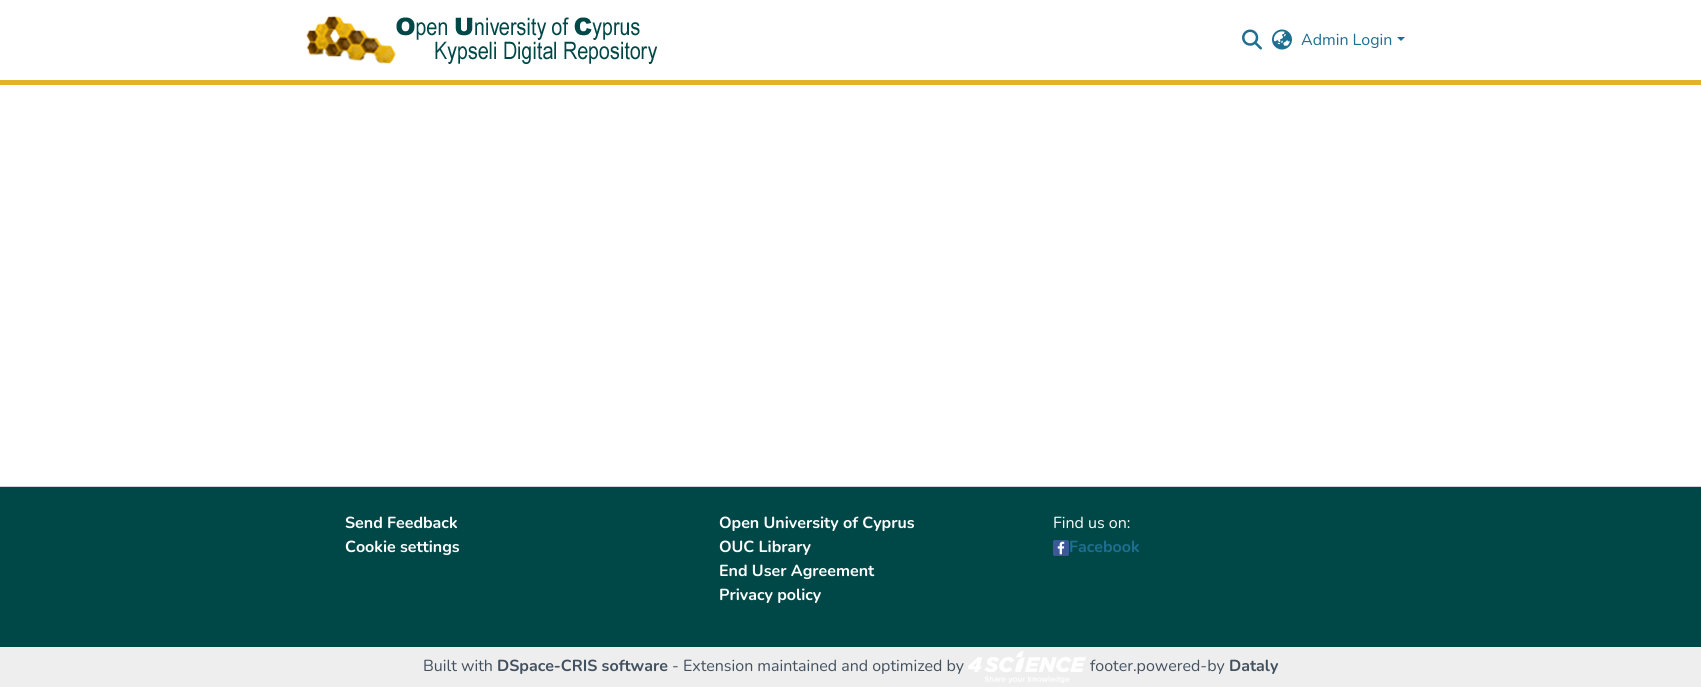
import math
import cairo

surface = cairo.ImageSurface(cairo.FORMAT_RGB24, 1701, 687)
c = cairo.Context(surface)
options = cairo.FontOptions()
options.set_hint_metrics(cairo.HINT_METRICS_OFF)
options.set_hint_style(cairo.HINT_STYLE_NONE)
c.set_font_options(options)
c.set_miter_limit(4)
def C(code):
 c.set_source_rgb(*(v / 255 for v in bytes.fromhex(code[-6:])))
def F(family, size, italic, bold):
 c.select_font_face(family, cairo.FONT_SLANT_ITALIC if italic else cairo.FONT_SLANT_NORMAL, cairo.FONT_WEIGHT_BOLD if bold else cairo.FONT_WEIGHT_NORMAL)
 c.set_font_size(size)
def T(x, y, s):
 c.move_to(x, y)
 c.show_text(s)
def R(x, y, w, h):
 c.rectangle(x, y, w, h)
 c.fill()
def I(path, x, y, w, h):
 c.save()
 c.set_source_surface(cairo.ImageSurface.create_from_png(path), x, y)
 c.rectangle(x, y, w, h)
 c.fill()
 c.restore()
C('ffffff')
c.paint()
C('e2b22d')
R(0,80,1701,5)
I('1.png',306,15,352,49)
I('2.png',1242,29,20,21)
I('3.png',1272,29,20,21)
F('Nunito',16,0,0)
C('1e6f90')
T(1301,45,'Admin Login')
c.new_path()
c.move_to(1397,37)
c.line_to(1405,37)
c.line_to(1401,41)
c.close_path()
c.fill()
C('eeeeee')
R(0,647,1701,40)
C('ced4da')
R(0,486,1701,1)
C('004848')
R(0,487,1701,160)
F('Nunito',16,0,1)
C('ffffff')
T(345,528,'Send Feedback')
T(345,552,'Cookie settings')
T(719,528,'Open University of Cyprus')
T(719,552,'OUC Library')
T(719,576,'End User Agreement')
T(719,600,'Privacy policy')
F('Nunito',16,0,0)
T(1053,528,'Find us on:')
I('4.png',1053,540,16,16)
F('Nunito',16,0,1)
C('1e6f90')
T(1069,552,'Facebook')
F('Nunito',16,0,0)
C('43515f')
T(423,671,'Built with')
F('Nunito',16,0,1)
T(497,671,'DSpace-CRIS software')
F('Nunito',16,0,0)
T(672,671,'- Extension maintained and optimized by')
I('5.png',968,651,118,32)
T(1090,671,'footer.powered-by')
F('Nunito',16,0,1)
T(1229,671,'Dataly')
surface.write_to_png('o.png')
